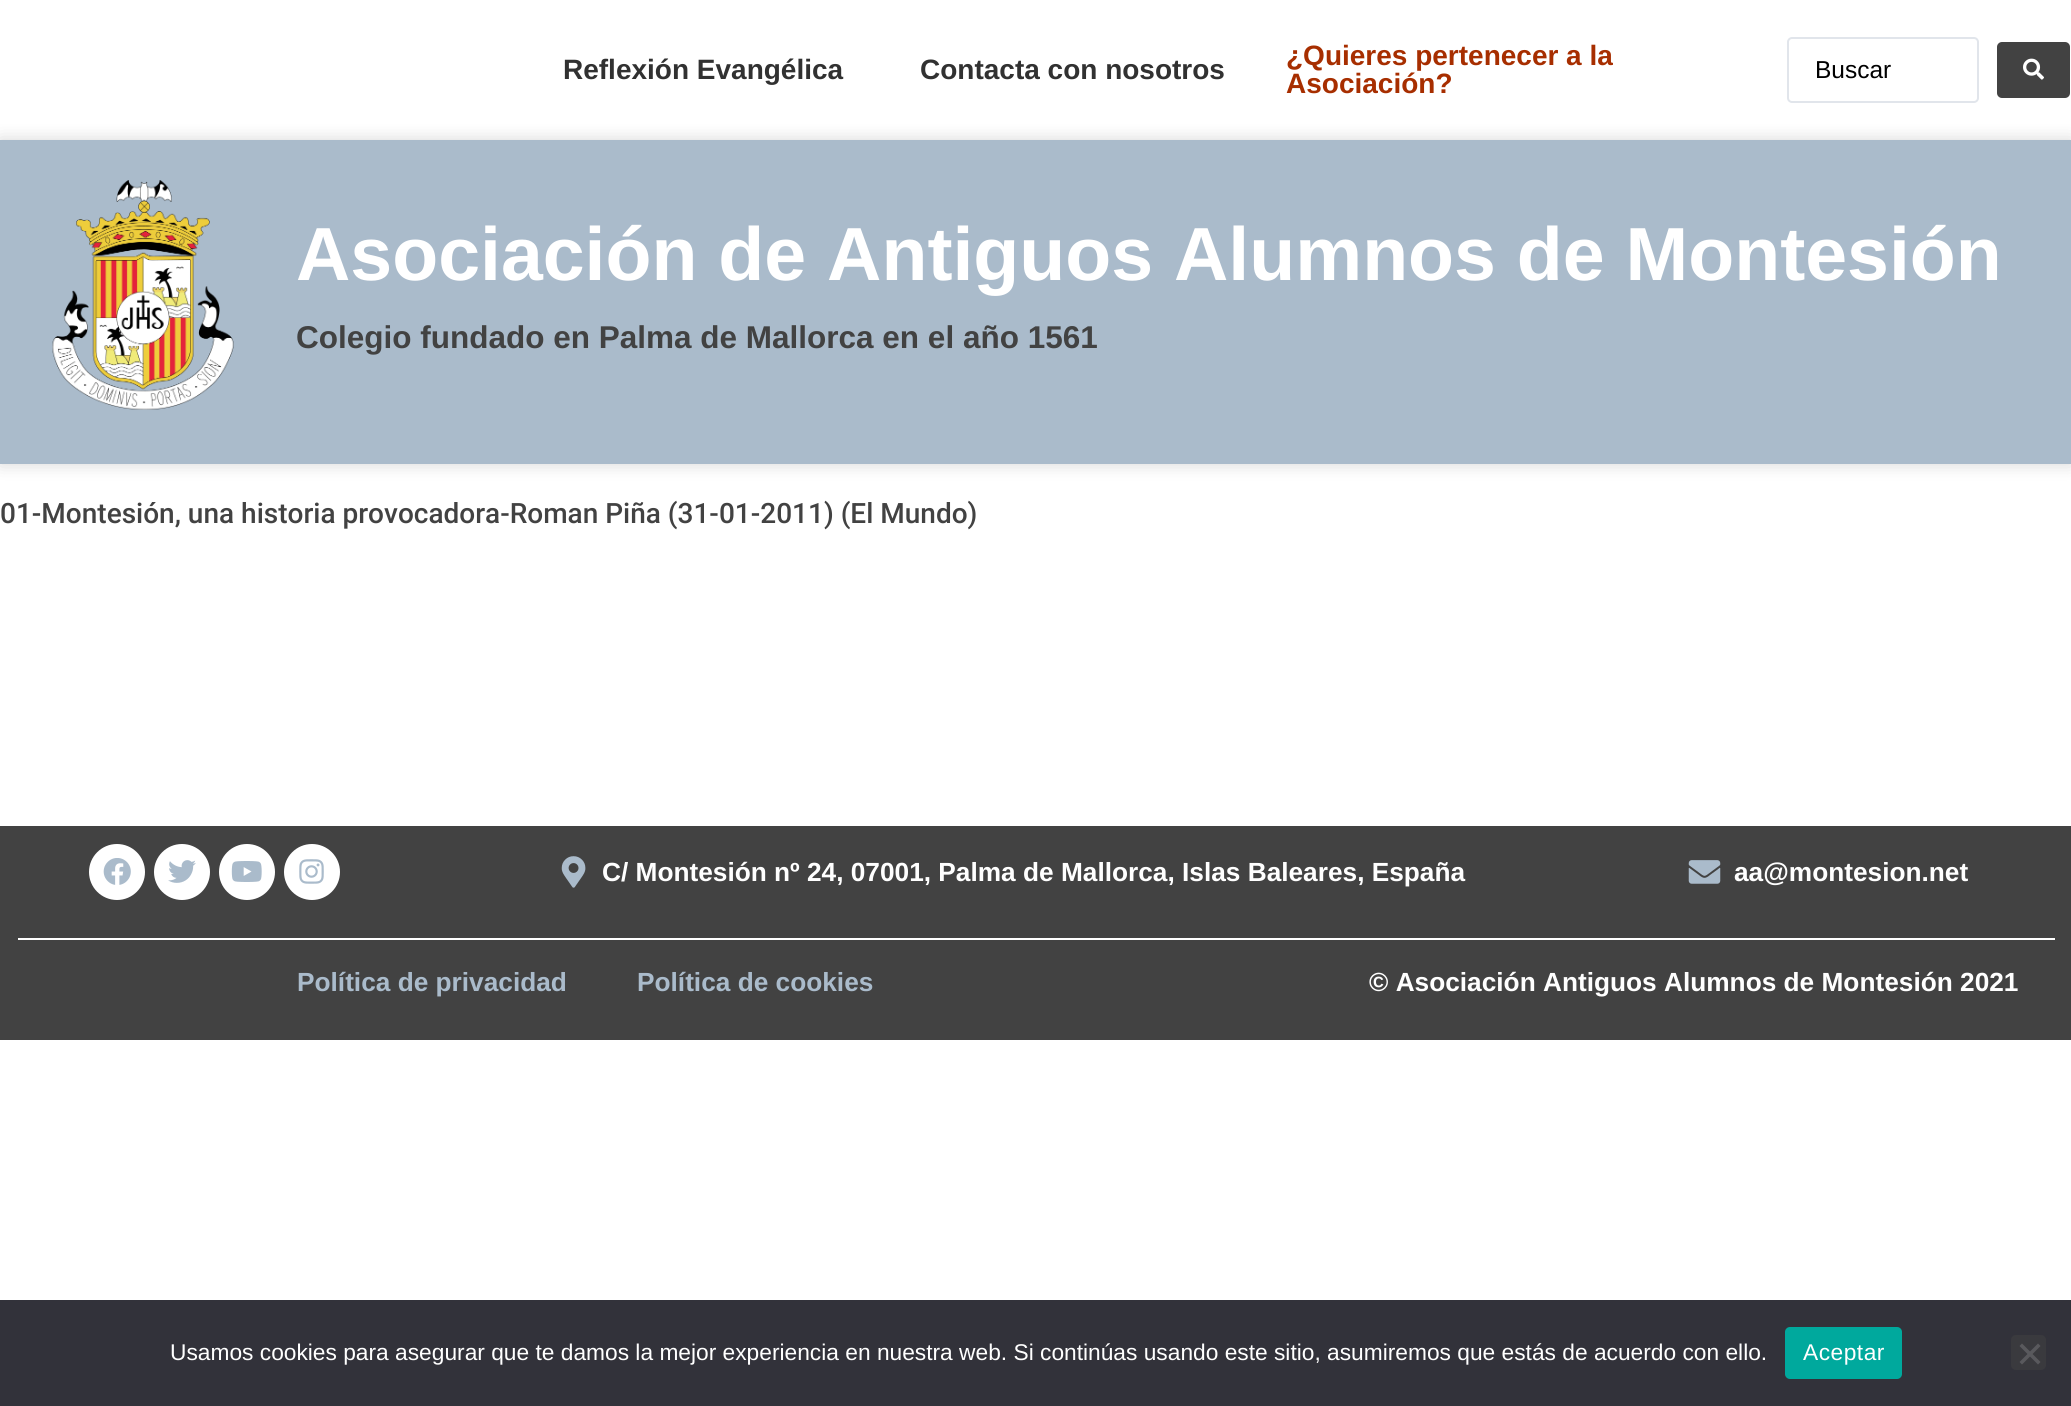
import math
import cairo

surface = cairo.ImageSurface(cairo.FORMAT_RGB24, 2071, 1406)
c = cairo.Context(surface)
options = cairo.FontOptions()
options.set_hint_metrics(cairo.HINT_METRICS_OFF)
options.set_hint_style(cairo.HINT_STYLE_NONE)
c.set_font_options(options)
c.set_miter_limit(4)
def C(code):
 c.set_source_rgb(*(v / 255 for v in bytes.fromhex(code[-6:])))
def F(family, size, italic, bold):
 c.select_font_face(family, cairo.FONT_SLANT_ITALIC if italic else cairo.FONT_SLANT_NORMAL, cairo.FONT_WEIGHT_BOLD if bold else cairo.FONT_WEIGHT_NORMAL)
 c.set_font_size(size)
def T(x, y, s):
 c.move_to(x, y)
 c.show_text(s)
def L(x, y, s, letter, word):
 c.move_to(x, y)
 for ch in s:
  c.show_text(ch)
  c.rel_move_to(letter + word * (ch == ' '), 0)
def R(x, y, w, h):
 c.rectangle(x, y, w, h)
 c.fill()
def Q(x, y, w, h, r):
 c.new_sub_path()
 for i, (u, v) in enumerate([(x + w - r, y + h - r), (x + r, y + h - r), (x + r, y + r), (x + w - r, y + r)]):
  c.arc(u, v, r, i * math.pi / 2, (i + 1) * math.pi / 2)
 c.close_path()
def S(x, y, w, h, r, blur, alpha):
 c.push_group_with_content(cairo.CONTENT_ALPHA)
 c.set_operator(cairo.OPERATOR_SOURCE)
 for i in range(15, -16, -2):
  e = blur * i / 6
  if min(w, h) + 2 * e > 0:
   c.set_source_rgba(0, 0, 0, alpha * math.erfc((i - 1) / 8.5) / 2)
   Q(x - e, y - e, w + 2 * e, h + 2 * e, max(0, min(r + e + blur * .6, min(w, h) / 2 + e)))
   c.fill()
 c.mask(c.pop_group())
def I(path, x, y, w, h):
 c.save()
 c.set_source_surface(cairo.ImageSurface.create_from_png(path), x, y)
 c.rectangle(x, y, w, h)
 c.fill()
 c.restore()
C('ffffff')
c.paint()
F('Liberation Sans',28,0,1)
C('313131')
T(563,79,'Reflexión Evangélica')
T(920,79,'Contacta con nosotros')
C('a72e00')
T(1286,65,'¿Quieres pertenecer a la')
T(1286,93,'Asociación?')
Q(1788,38,190,64,4)
C('e1e5eb')
c.stroke()
F('Liberation Sans',24.5,0,0)
C('000000')
T(1815,78,'Buscar')
C('424242')
Q(1997,42,73,56,5)
c.fill()
I('1.png',2023,58,21,22)
C('000000')
S(0,140,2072,324,0,9,.16)
C('aabbcb')
R(0,140,2071,324)
I('2.png',52,180,182,230)
F('Liberation Sans',75.25,0,1)
C('ffffff')
T(296,280,'Asociación de Antiguos Alumnos de Montesión')
F('Liberation Sans',31.5,0,1)
C('424242')
T(296,348,'Colegio fundado en Palma de Mallorca en el año 1561')
F('Roboto Medium',28,0,0)
T(0,523,'01-Montesión, una historia provocadora-Roman Piña (31-01-2011) (El Mundo)')
R(0,826,2071,214)
C('ffffff')
c.new_path()
c.arc(117,872,28,0,2 * math.pi)
c.fill()
I('3.png',103,858,28,27)
c.arc(182,872,28,0,2 * math.pi)
c.fill()
I('4.png',168,860,28,23)
c.arc(247,872,28,0,2 * math.pi)
c.fill()
I('5.png',231,861,31,21)
c.arc(312,872,28,0,2 * math.pi)
c.fill()
I('6.png',299,859,25,25)
I('7.png',561,856,25,32)
F('Liberation Sans',26.25,0,1)
T(602,881,'C/ Montesión nº 24, 07001, Palma de Mallorca, Islas Baleares, España')
I('8.png',1688,860,33,24)
T(1734,881,'aa@montesion.net')
R(18,938,2037,2)
C('aabbcb')
T(297,991,'Política de privacidad')
T(637,991,'Política de cookies')
C('ffffff')
T(1369,991,'© Asociación Antiguos Alumnos de Montesión 2021')
C('32323a')
R(0,1300,2071,106)
F('Liberation Sans',22.75,0,0)
C('ffffff')
T(170,1360,'Usamos cookies para asegurar que te damos la mejor experiencia en nuestra web. Si continúas usando este sitio, asumiremos que estás de acuerdo con ello.')
C('00a99d')
Q(1785,1327,117,52,5)
c.fill()
C('ffffff')
L(1803,1360,'Aceptar',.5,0)
C('3a3a3e')
Q(2011,1335,35,35,5)
c.fill()
C('59595d')
c.new_path()
c.move_to(2038,1343.5)
c.line_to(2040.5,1346)
c.line_to(2022,1364.5)
c.line_to(2019.5,1362)
c.close_path()
c.fill()
c.new_path()
c.move_to(2019.5,1346)
c.line_to(2022,1343.5)
c.line_to(2040.5,1362)
c.line_to(2038,1364.5)
c.close_path()
c.fill()
surface.write_to_png('o.png')
